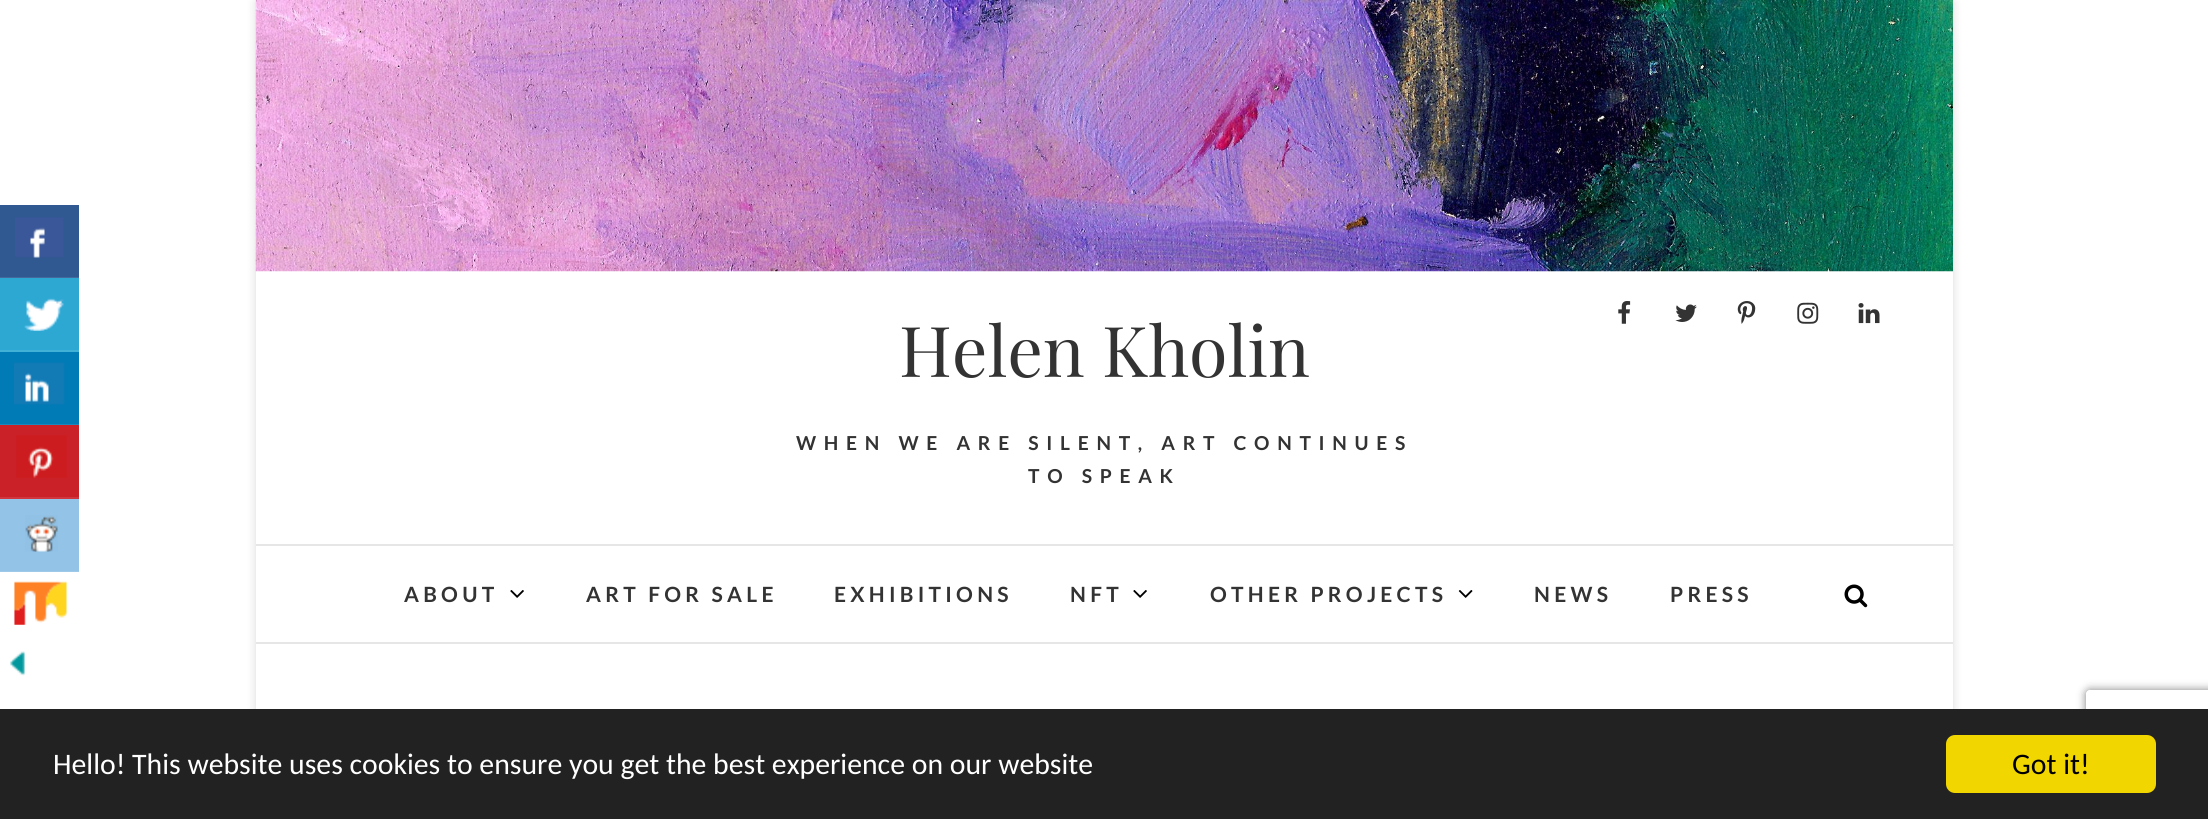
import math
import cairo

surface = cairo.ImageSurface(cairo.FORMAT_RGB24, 2208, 819)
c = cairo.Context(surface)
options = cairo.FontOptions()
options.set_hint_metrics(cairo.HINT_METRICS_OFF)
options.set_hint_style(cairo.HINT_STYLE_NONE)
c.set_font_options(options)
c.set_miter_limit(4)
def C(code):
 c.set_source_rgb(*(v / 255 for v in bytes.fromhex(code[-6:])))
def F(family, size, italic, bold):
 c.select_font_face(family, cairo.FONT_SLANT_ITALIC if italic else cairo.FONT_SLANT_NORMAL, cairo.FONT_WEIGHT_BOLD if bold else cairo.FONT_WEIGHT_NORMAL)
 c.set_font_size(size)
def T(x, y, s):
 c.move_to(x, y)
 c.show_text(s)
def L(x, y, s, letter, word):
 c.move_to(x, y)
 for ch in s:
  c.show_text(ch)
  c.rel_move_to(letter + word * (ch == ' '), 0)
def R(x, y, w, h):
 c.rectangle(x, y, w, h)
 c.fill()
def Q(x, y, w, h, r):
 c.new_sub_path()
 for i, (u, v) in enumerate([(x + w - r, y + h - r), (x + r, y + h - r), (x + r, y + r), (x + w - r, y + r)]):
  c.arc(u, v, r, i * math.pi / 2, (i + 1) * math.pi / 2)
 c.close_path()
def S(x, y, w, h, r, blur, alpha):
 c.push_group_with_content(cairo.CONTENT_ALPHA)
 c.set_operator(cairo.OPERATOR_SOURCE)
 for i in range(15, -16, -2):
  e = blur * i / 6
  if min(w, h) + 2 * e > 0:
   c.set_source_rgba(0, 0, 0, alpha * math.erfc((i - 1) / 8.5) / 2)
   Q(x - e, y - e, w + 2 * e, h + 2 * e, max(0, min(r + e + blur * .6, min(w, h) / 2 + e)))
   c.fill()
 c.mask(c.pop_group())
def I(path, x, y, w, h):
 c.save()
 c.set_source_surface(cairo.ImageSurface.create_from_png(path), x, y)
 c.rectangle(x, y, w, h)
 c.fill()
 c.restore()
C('ffffff')
c.paint()
C('305891')
R(0,205,79,72)
C('45699c')
R(0,277,79,1)
I('1.png',15,217,49,41)
C('2ca8d2')
R(0,278,79,72)
C('41b1d7')
R(0,350,79,2)
I('2.png',24,298,40,33)
C('007bb6')
R(0,352,79,72)
C('1a88bd')
R(0,424,79,1)
I('3.png',14,362,51,43)
C('ca2027')
R(0,425,79,72)
C('cf363d')
R(0,497,79,2)
I('4.png',16,435,51,43)
C('93c3e6')
R(0,499,79,72)
C('9ec9e9')
R(0,571,79,1)
I('5.png',25,515,33,37)
I('6.png',14,581,53,44)
I('7.png',10,651,15,25)
c.save()
c.set_fill_rule(cairo.FILL_RULE_EVEN_ODD)
c.new_path()
c.move_to(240,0)
c.line_to(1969,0)
c.line_to(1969,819)
c.line_to(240,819)
c.close_path()
c.move_to(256,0)
c.line_to(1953,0)
c.line_to(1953,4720)
c.line_to(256,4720)
c.close_path()
c.clip()
C('000000')
S(256,2,1697,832,0,5,.15)
c.restore()
I('8.png',255,0,1698,272)
C('e6e6e6')
R(256,544,1697,2)
I('9.png',1618,301,13,23)
I('10.png',1675,304,22,18)
I('11.png',1737,301,19,23)
I('12.png',1797,302,22,22)
I('13.png',1858,303,22,21)
F('Playfair Display',70,0,0)
C('333333')
T(899,377,'Helen Kholin')
F('Lato',19.25,0,1)
L(796,450,'WHEN WE ARE SILENT, ART CONTINUES',7.7,0)
L(1028,483,'TO SPEAK',7.7,0)
C('e6e6e6')
R(256,642,1697,2)
F('Lato',21,0,1)
C('333333')
L(404,602,'ABOUT',4.25,0)
I('14.png',510,590,14,8)
L(586,602,'ART FOR SALE',4.25,0)
L(834,602,'EXHIBITIONS',4.25,0)
L(1070,602,'NFT',4.25,0)
I('14.png',1133,590,14,8)
L(1210,602,'OTHER PROJECTS',4.25,0)
I('15.png',1458,590,15,8)
L(1534,602,'NEWS',4.25,0)
L(1670,602,'PRESS',4.25,0)
I('16.png',1844,584,24,24)
c.save()
c.set_fill_rule(cairo.FILL_RULE_EVEN_ODD)
c.new_path()
c.move_to(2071,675)
c.line_to(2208,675)
c.line_to(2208,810)
c.line_to(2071,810)
c.close_path()
c.move_to(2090,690)
c.line_to(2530,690)
c.curve_to(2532,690,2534,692,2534,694)
c.line_to(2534,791)
c.curve_to(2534,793,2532,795,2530,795)
c.line_to(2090,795)
c.curve_to(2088,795,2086,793,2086,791)
c.line_to(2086,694)
c.curve_to(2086,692,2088,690,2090,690)
c.close_path()
c.clip()
C('808080')
S(2086,690,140,105,4,4.5,1)
c.restore()
C('222222')
R(0,709,2208,110)
F('Carlito',29.75,0,0)
C('ffffff')
T(53,774,'Hello! This website uses cookies to ensure you get the best experience on our website')
C('f1d600')
Q(1946,735,210,58,9)
c.fill()
C('000000')
T(2012,774,'Got it!')
surface.write_to_png('o.png')
